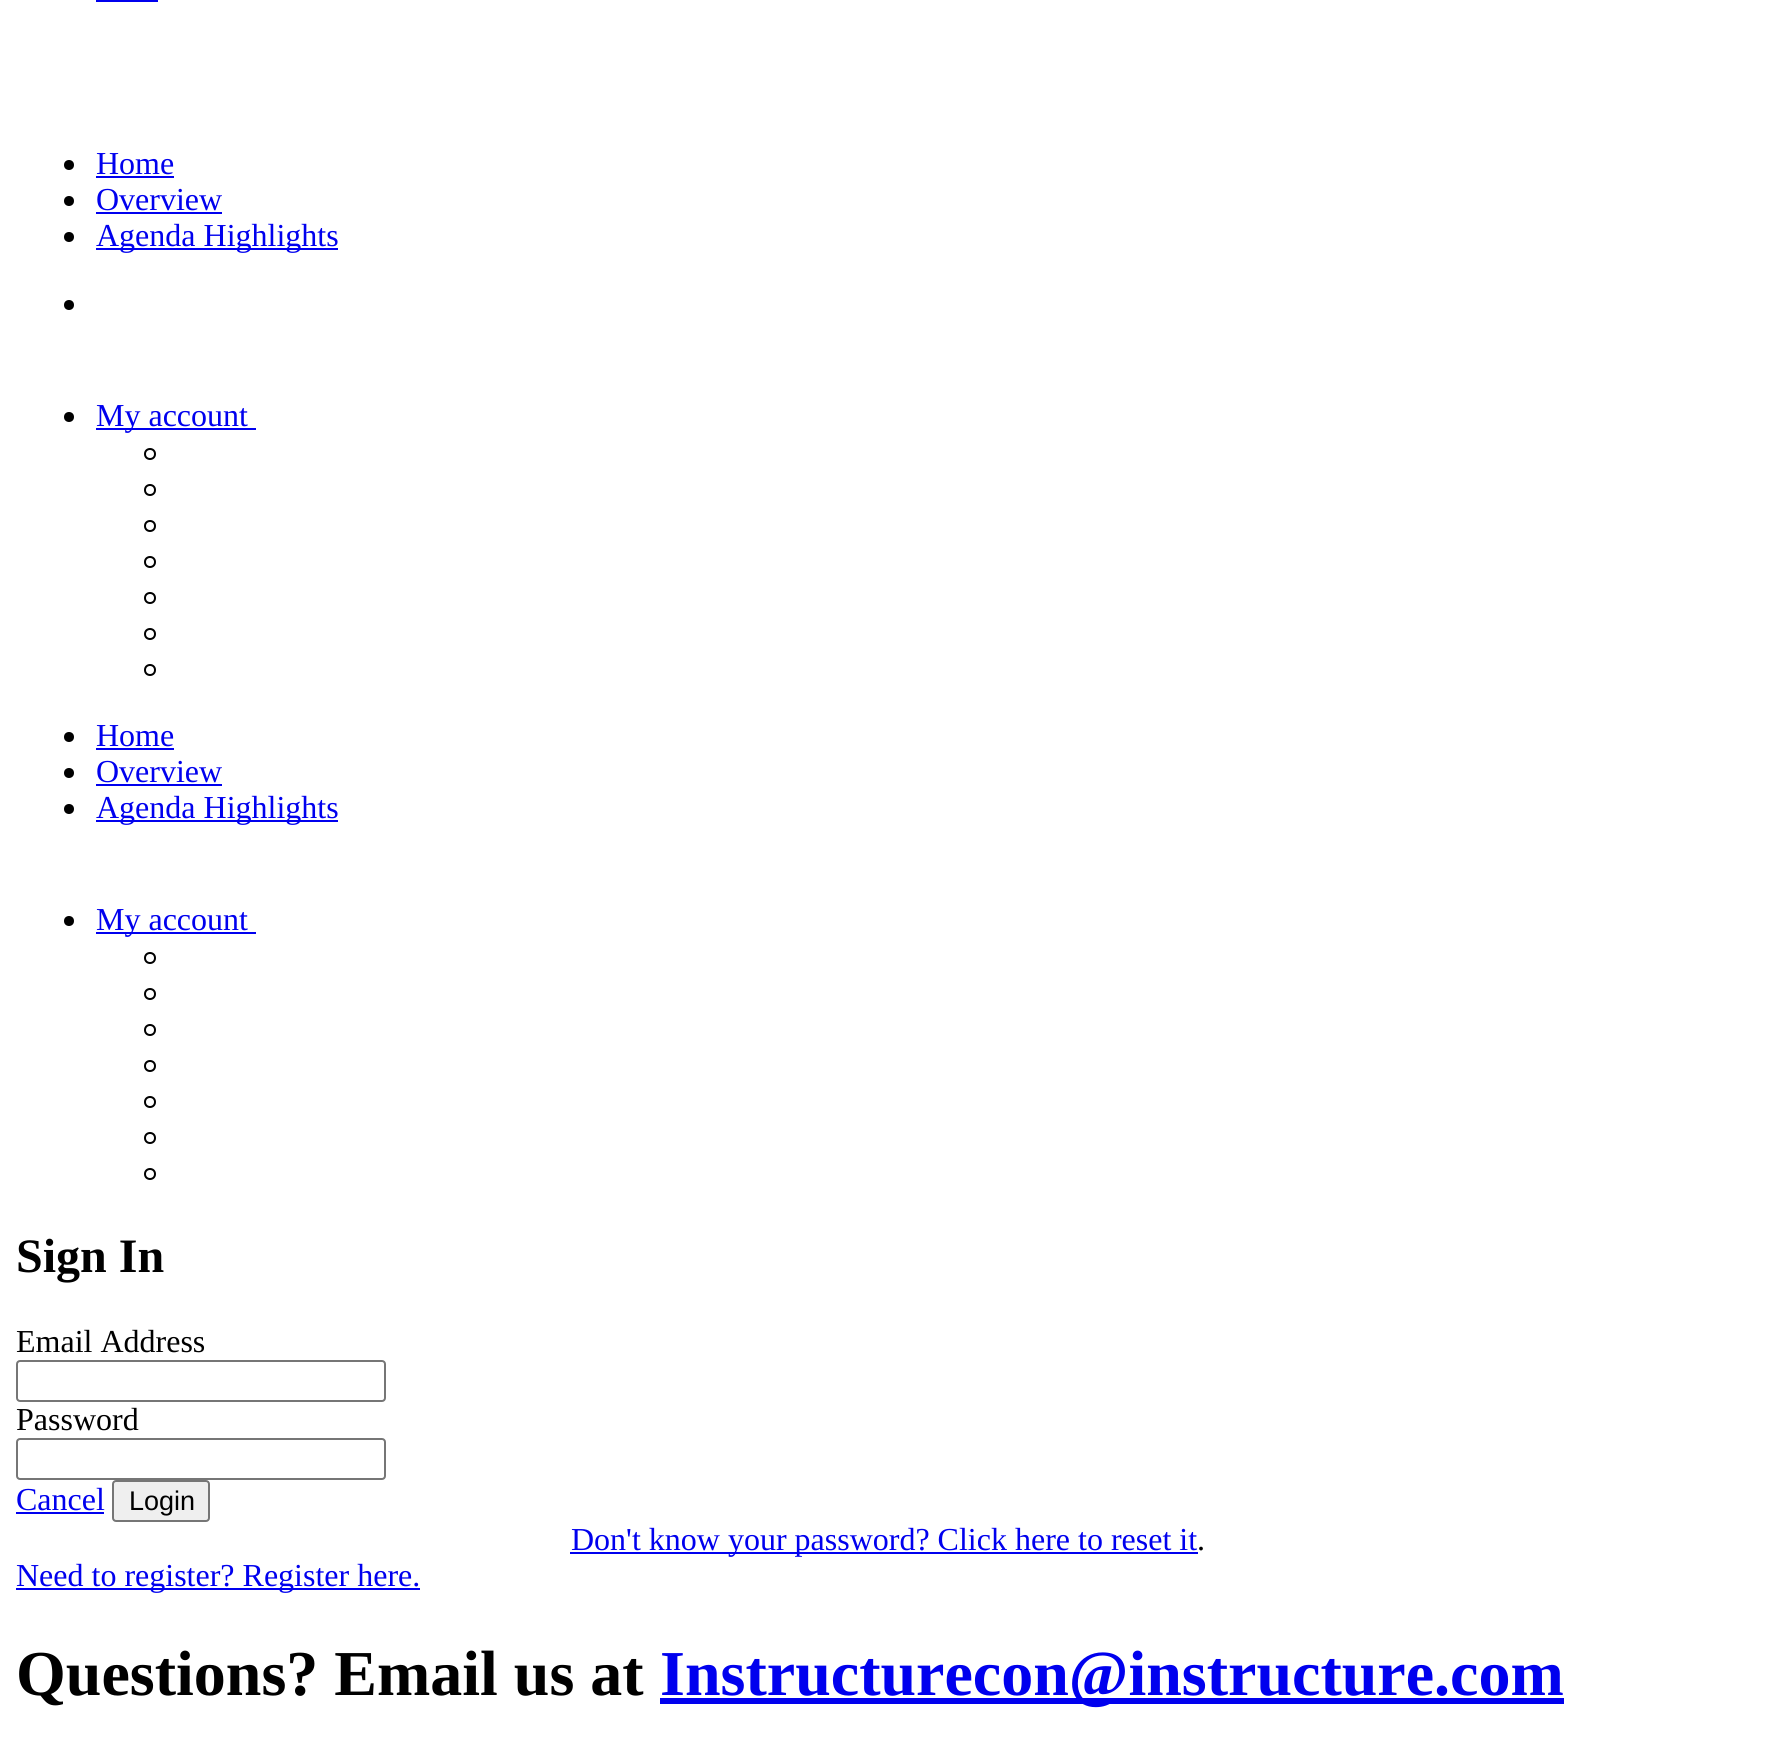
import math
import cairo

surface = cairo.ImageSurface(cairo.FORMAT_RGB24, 1776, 1754)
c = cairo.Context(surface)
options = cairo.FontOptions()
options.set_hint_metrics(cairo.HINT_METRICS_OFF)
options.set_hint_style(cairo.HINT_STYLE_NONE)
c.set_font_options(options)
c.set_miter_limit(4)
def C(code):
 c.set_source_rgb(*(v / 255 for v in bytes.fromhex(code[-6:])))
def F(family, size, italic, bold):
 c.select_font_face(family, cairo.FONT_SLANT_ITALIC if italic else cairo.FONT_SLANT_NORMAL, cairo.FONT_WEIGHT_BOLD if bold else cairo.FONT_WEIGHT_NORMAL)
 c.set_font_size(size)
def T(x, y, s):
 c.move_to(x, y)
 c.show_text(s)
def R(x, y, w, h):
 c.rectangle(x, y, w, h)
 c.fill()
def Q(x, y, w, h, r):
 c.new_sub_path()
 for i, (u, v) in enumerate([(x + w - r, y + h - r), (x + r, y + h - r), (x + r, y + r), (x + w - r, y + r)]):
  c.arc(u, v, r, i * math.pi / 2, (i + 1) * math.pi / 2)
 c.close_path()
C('ffffff')
c.paint()
C('0000ee')
R(96,0,62,2)
C('000000')
c.arc(69,165,5,0,2 * math.pi)
c.fill()
F('Liberation Serif',32,0,0)
C('0000ee')
T(96,174,'Home')
R(96,176,78,2)
C('000000')
c.new_path()
c.arc(69,201,5,0,2 * math.pi)
c.fill()
C('0000ee')
T(96,210,'Overview')
R(96,212,126,2)
C('000000')
c.new_path()
c.arc(69,237,5,0,2 * math.pi)
c.fill()
C('0000ee')
R(96,248,242,2)
T(96,246,'Agenda Highlights')
C('000000')
c.new_path()
c.arc(69,305,5,0,2 * math.pi)
c.fill()
c.arc(69,417,5,0,2 * math.pi)
c.fill()
C('0000ee')
R(96,428,160,2)
T(96,426,'My account')
c.new_path()
c.arc(150,454,5,0,2 * math.pi)
C('000000')
c.stroke()
c.arc(150,490,5,0,2 * math.pi)
c.stroke()
c.arc(150,526,5,0,2 * math.pi)
c.stroke()
c.arc(150,562,5,0,2 * math.pi)
c.stroke()
c.arc(150,598,5,0,2 * math.pi)
c.stroke()
c.arc(150,634,5,0,2 * math.pi)
c.stroke()
c.arc(150,670,5,0,2 * math.pi)
c.stroke()
c.arc(69,737,5,0,2 * math.pi)
c.fill()
C('0000ee')
T(96,746,'Home')
R(96,748,78,2)
C('000000')
c.new_path()
c.arc(69,773,5,0,2 * math.pi)
c.fill()
C('0000ee')
T(96,782,'Overview')
R(96,784,126,2)
C('000000')
c.new_path()
c.arc(69,809,5,0,2 * math.pi)
c.fill()
C('0000ee')
R(96,820,242,2)
T(96,818,'Agenda Highlights')
C('000000')
c.new_path()
c.arc(69,921,5,0,2 * math.pi)
c.fill()
C('0000ee')
R(96,932,160,2)
T(96,930,'My account')
c.new_path()
c.arc(150,958,5,0,2 * math.pi)
C('000000')
c.stroke()
c.arc(150,994,5,0,2 * math.pi)
c.stroke()
c.arc(150,1030,5,0,2 * math.pi)
c.stroke()
c.arc(150,1066,5,0,2 * math.pi)
c.stroke()
c.arc(150,1102,5,0,2 * math.pi)
c.stroke()
c.arc(150,1138,5,0,2 * math.pi)
c.stroke()
c.arc(150,1174,5,0,2 * math.pi)
c.stroke()
F('Liberation Serif',48,0,1)
T(16,1272,'Sign In')
F('Liberation Serif',32,0,0)
T(16,1352,'Email Address')
Q(17,1361,368,40,3)
C('767676')
c.stroke()
C('000000')
T(16,1430,'Password')
Q(17,1439,368,40,3)
C('767676')
c.stroke()
C('0000ee')
T(16,1510,'Cancel')
R(16,1512,88,2)
C('efefef')
Q(113,1481,96,40,3)
c.fill_preserve()
C('767676')
c.stroke()
F('Liberation Sans',27,0,0)
C('000000')
T(129,1510,'Login')
C('0000ee')
R(570,1552,628,2)
F('Liberation Serif',32,0,0)
T(571,1550,'Don\'t know your password? Click here to reset it')
C('000000')
T(1197,1550,'.')
C('0000ee')
R(16,1588,404,2)
T(16,1586,'Need to register? Register here.')
F('Liberation Serif',64,0,1)
C('000000')
T(16,1695,'Questions? Email us at')
C('0000ee')
R(660,1698,904,6)
T(660,1695,'Instructurecon@instructure.com')
surface.write_to_png('o.png')
